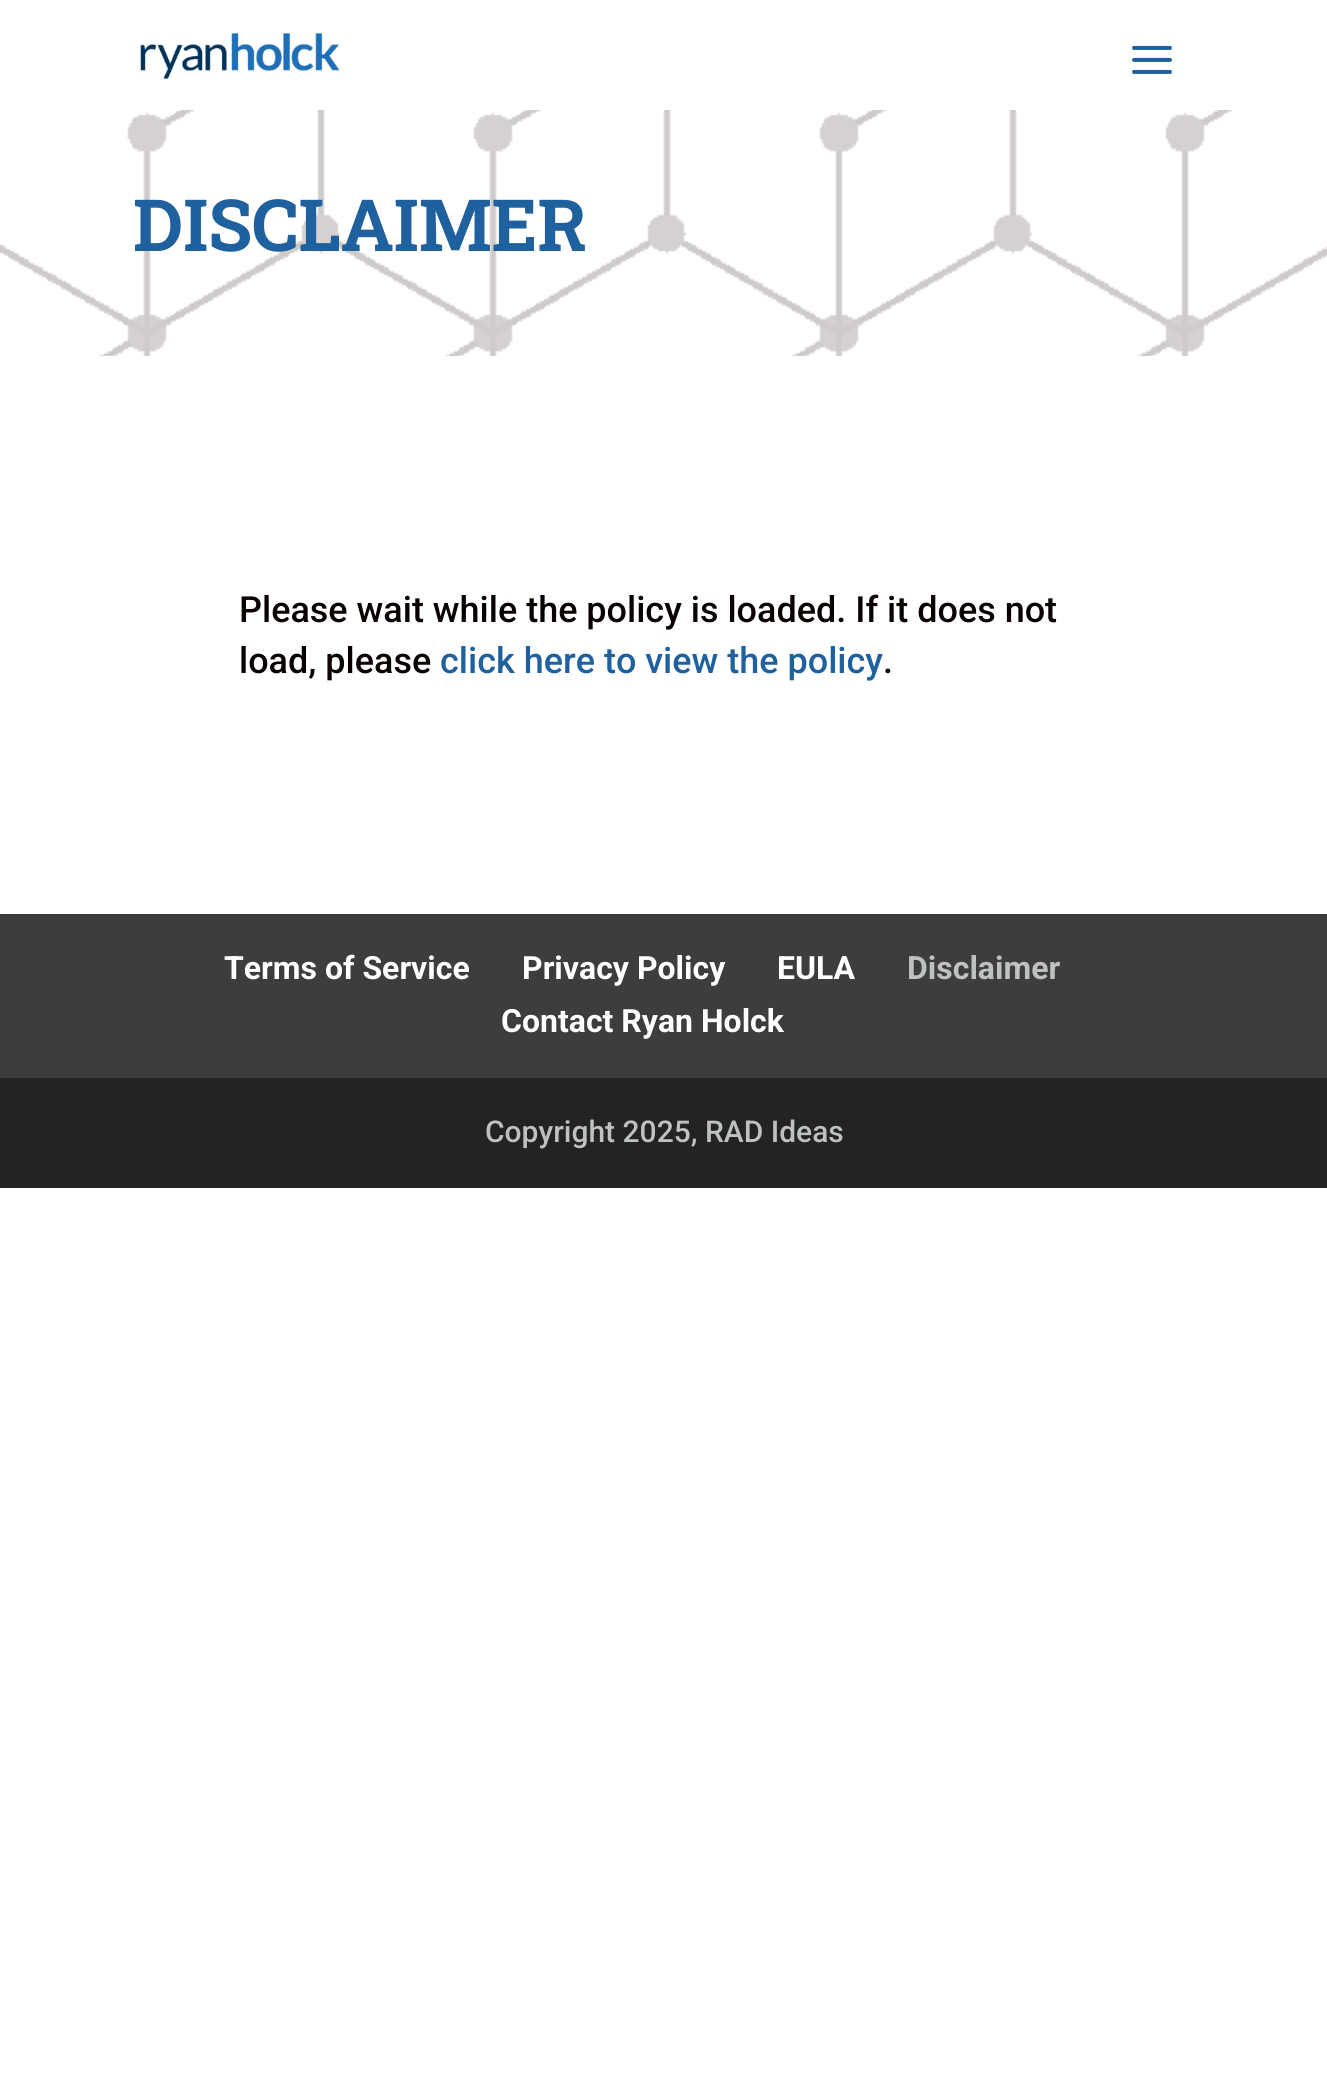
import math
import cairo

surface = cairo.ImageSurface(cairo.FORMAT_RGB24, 1327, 2091)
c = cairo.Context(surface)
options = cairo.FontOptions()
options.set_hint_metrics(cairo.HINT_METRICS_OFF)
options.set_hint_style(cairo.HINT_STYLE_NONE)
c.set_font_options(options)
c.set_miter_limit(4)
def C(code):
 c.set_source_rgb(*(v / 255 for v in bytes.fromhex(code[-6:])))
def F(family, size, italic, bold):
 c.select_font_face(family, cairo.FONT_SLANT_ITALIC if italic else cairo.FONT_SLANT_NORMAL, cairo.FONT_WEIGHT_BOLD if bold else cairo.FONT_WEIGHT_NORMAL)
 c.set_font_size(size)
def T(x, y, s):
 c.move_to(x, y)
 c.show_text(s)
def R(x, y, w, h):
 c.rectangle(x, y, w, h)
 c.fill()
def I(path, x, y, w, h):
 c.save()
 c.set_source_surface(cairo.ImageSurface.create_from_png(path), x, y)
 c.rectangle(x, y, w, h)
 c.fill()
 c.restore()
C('ffffff')
c.paint()
I('1.png',140,33,200,46)
I('2.png',1132,45,40,29)
I('3.png',0,110,1327,246)
F('Roboto Slab',72,0,1)
C('1f609e')
T(133,251,'DISCLAIMER')
F('Roboto Medium',36,0,0)
C('0a0101')
T(239,622,'Please wait while the policy is loaded. If it does not')
T(239,673,'load, please')
C('1f609e')
T(440,673,'click here to view the policy')
C('0a0101')
T(883,673,'.')
C('3d3d3d')
R(0,914,1327,164)
F('Roboto',32,0,1)
C('ffffff')
T(224,979,'Terms of Service')
T(522,979,'Privacy Policy')
T(777,979,'EULA')
C('bdc1c0')
T(907,979,'Disclaimer')
C('ffffff')
T(501,1032,'Contact Ryan Holck')
C('232323')
R(0,1078,1327,110)
F('Roboto Medium',30,0,0)
C('bdc1c0')
T(485,1142,'Copyright 2025, RAD Ideas')
surface.write_to_png('o.png')
